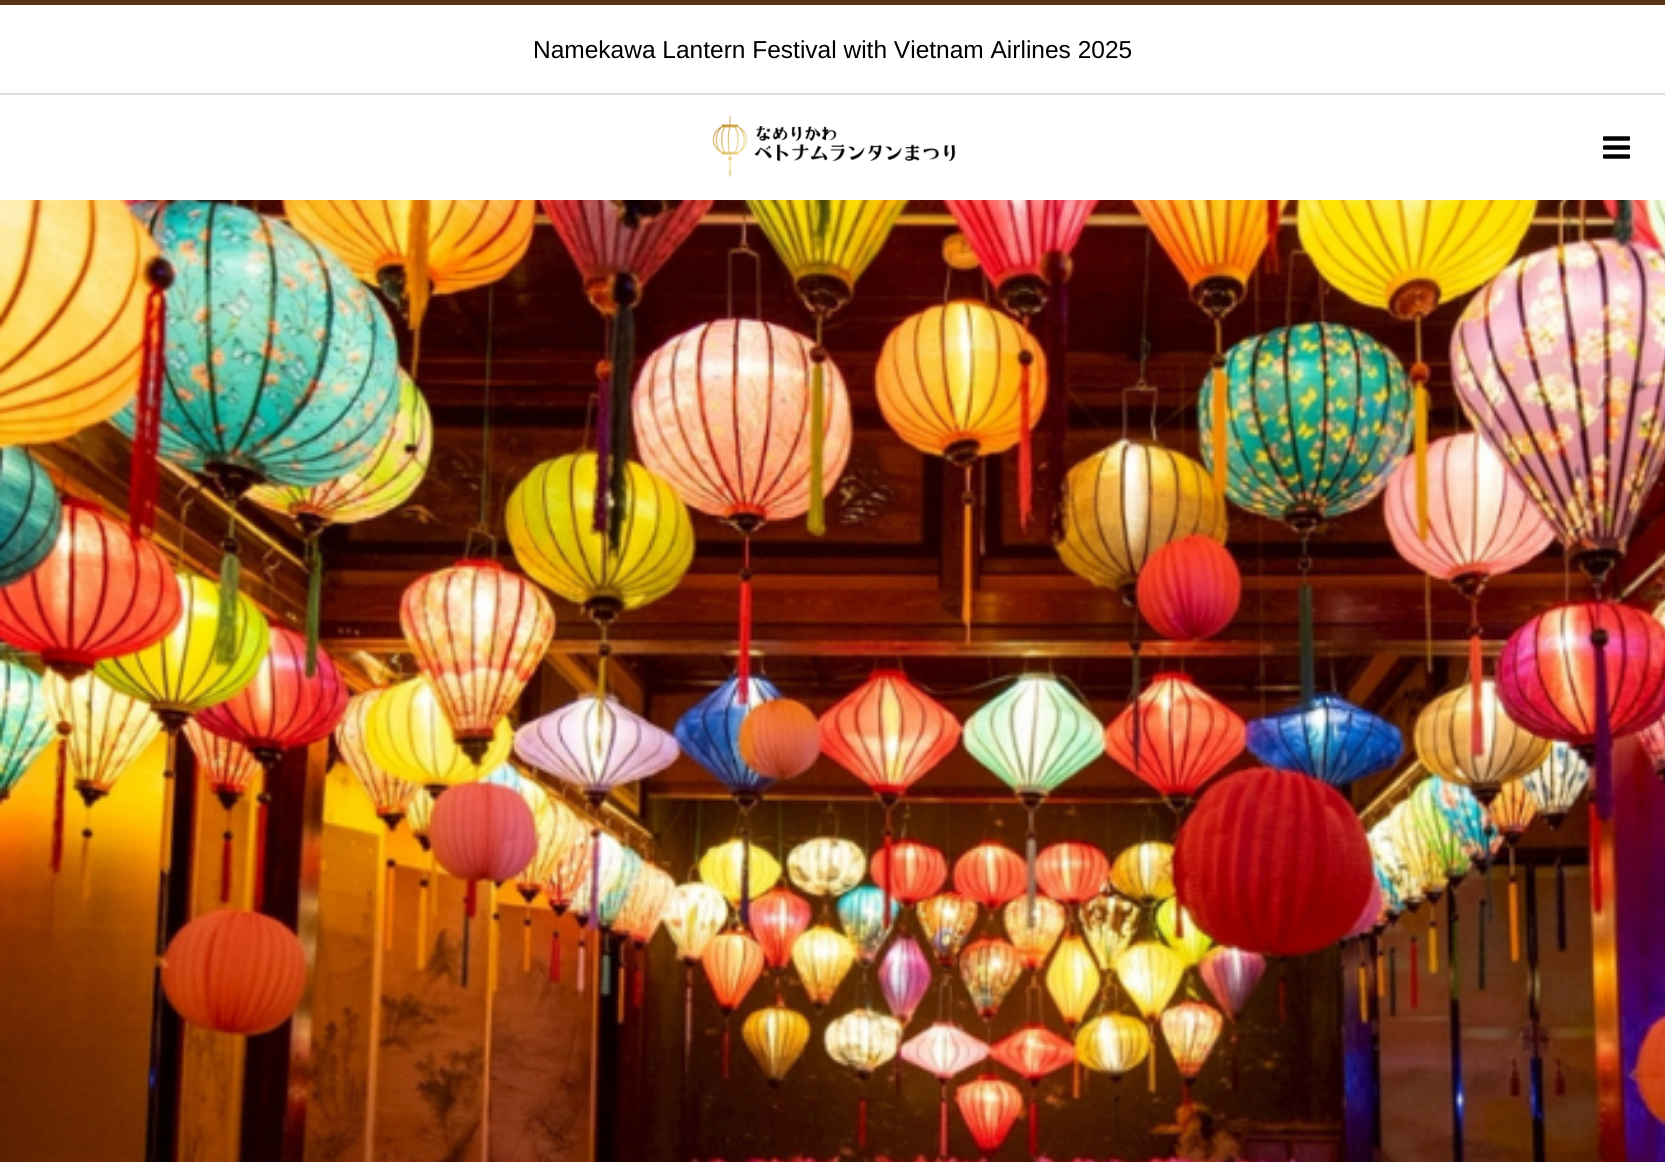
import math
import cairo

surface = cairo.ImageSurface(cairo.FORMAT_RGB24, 1665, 1162)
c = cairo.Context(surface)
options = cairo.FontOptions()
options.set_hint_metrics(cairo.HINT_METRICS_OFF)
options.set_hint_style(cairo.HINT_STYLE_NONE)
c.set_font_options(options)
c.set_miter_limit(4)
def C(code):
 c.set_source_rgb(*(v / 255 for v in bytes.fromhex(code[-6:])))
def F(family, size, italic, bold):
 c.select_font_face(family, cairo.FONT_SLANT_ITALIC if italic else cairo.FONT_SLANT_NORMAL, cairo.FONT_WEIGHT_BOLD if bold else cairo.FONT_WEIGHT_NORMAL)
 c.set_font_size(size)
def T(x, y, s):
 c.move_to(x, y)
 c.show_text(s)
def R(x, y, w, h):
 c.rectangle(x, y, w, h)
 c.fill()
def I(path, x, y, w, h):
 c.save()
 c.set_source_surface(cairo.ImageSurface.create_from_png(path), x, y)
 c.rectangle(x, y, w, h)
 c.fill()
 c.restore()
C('ffffff')
c.paint()
C('573312')
R(0,0,1665,5)
C('dddddd')
R(0,93,1665,2)
F('Liberation Sans',24.5,0,0)
C('000000')
T(533,58,'Namekawa Lantern Festival with Vietnam Airlines 2025')
I('1.png',712,115,244,63)
I('2.png',1603,136,27,23)
I('3.png',0,200,1665,962)
surface.write_to_png('o.png')
